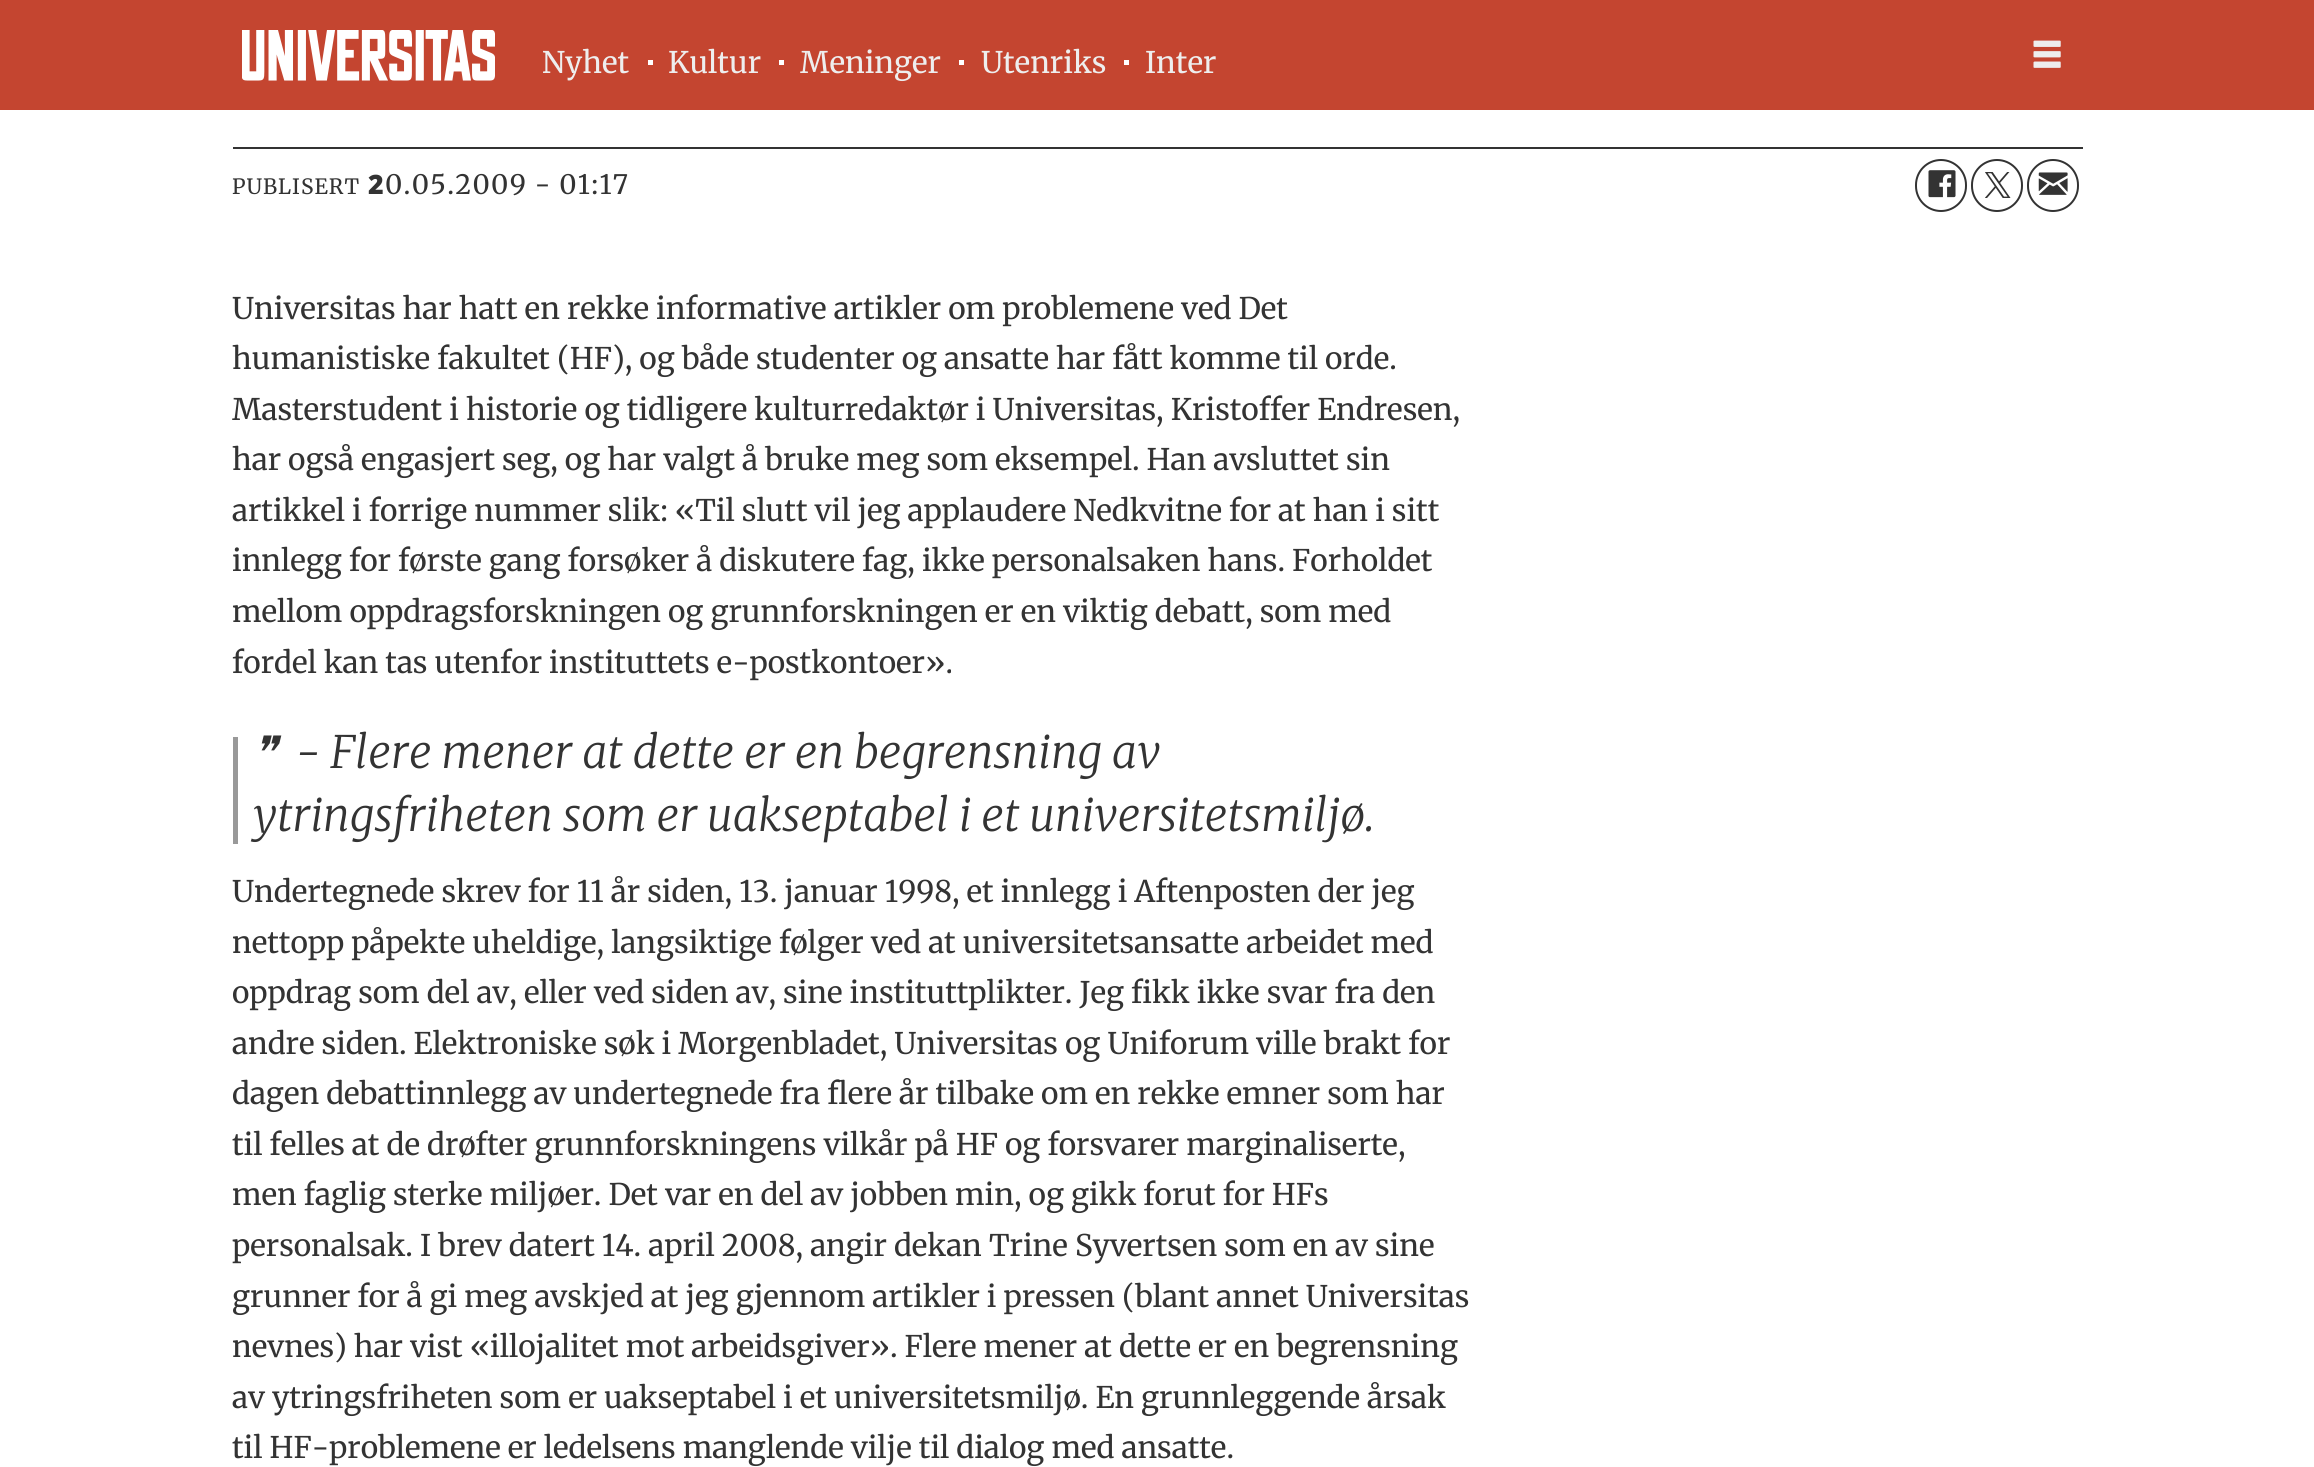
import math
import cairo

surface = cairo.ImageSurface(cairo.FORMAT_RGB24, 2314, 1467)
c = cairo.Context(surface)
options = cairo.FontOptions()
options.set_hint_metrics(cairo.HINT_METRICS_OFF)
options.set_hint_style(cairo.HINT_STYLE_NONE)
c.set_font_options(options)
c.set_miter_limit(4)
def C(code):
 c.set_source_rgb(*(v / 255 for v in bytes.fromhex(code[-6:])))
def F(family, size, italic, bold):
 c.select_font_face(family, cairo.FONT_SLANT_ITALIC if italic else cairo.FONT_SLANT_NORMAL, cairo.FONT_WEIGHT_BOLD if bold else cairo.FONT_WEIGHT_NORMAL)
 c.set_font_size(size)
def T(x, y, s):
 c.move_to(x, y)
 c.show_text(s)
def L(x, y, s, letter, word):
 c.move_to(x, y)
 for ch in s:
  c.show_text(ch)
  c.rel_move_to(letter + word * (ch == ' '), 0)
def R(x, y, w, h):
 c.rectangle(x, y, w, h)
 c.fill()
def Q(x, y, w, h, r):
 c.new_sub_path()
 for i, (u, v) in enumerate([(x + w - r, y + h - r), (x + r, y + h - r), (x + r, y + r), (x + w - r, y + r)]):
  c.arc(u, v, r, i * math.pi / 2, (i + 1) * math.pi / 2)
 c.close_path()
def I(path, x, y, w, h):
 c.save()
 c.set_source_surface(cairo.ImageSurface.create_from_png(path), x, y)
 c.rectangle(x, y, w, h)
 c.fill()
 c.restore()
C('ffffff')
c.paint()
C('c44530')
R(0,0,2314,110)
I('1.png',242,30,253,51)
F('Merriweather',29.75,0,0)
C('eeeeee')
T(542,73,'Nyhet')
C('ffffff')
R(648,60,5,5)
C('eeeeee')
T(668,73,'Kultur')
C('ffffff')
R(779,60,5,5)
C('eeeeee')
T(800,73,'Meninger')
C('ffffff')
R(959,60,5,5)
C('eeeeee')
T(981,73,'Utenriks')
C('ffffff')
R(1124,60,5,5)
C('eeeeee')
T(1145,73,'Inter')
I('2.png',2033,40,28,28)
C('333333')
R(233,147,1850,2)
F('Merriweather',21,0,0)
L(232,194,'PUBLISERT',1,0)
F('Noto Sans Black',26.75,0,0)
L(368,194,'2',1.3,0)
F('Merriweather',26.75,0,0)
L(385,194,'0.05.2009 - 01:17',1.3,0)
Q(1916,160,50,51,25)
c.stroke()
I('3.png',1928,170,28,28)
Q(1972,160,50,51,25)
c.stroke()
I('4.png',1985,172,26,26)
Q(2028,160,50,51,25)
c.stroke()
I('5.png',2038,172,30,23)
F('Merriweather',29.75,0,0)
T(232,319,'Universitas har hatt en rekke informative artikler om problemene ved Det')
T(232,369,'humanistiske fakultet (HF), og både studenter og ansatte har fått komme til orde.')
T(232,420,'Masterstudent i historie og tidligere kulturredaktør i Universitas, Kristoffer Endresen,')
T(232,470,'har også engasjert seg, og har valgt å bruke meg som eksempel. Han avsluttet sin')
T(232,521,'artikkel i forrige nummer slik: «Til slutt vil jeg applaudere Nedkvitne for at han i sitt')
T(232,571,'innlegg for første gang forsøker å diskutere fag, ikke personalsaken hans. Forholdet')
T(232,622,'mellom oppdragsforskningen og grunnforskningen er en viktig debatt, som med')
T(232,673,'fordel kan tas utenfor instituttets e-postkontoer».')
C('999999')
R(233,737,5,107)
F('DejaVu Sans',44.6,1,0)
C('333333')
T(253,768,'❞')
F('Merriweather Light',44.6,1,0)
T(296,768,'- Flere mener at dette er en begrensning av')
T(253,831,'ytringsfriheten som er uakseptabel i et universitetsmiljø.')
F('Merriweather',29.75,0,0)
T(232,902,'Undertegnede skrev for 11 år siden, 13. januar 1998, et innlegg i Aftenposten der jeg')
T(232,953,'nettopp påpekte uheldige, langsiktige følger ved at universitetsansatte arbeidet med')
T(232,1003,'oppdrag som del av, eller ved siden av, sine instituttplikter. Jeg fikk ikke svar fra den')
T(232,1054,'andre siden. Elektroniske søk i Morgenbladet, Universitas og Uniforum ville brakt for')
T(232,1104,'dagen debattinnlegg av undertegnede fra flere år tilbake om en rekke emner som har')
T(232,1155,'til felles at de drøfter grunnforskningens vilkår på HF og forsvarer marginaliserte,')
T(232,1205,'men faglig sterke miljøer. Det var en del av jobben min, og gikk forut for HFs')
T(232,1256,'personalsak. I brev datert 14. april 2008, angir dekan Trine Syvertsen som en av sine')
T(232,1307,'grunner for å gi meg avskjed at jeg gjennom artikler i pressen (blant annet Universitas')
T(232,1357,'nevnes) har vist «illojalitet mot arbeidsgiver». Flere mener at dette er en begrensning')
T(232,1408,'av ytringsfriheten som er uakseptabel i et universitetsmiljø. En grunnleggende årsak')
T(232,1458,'til HF-problemene er ledelsens manglende vilje til dialog med ansatte.')
surface.write_to_png('o.png')
